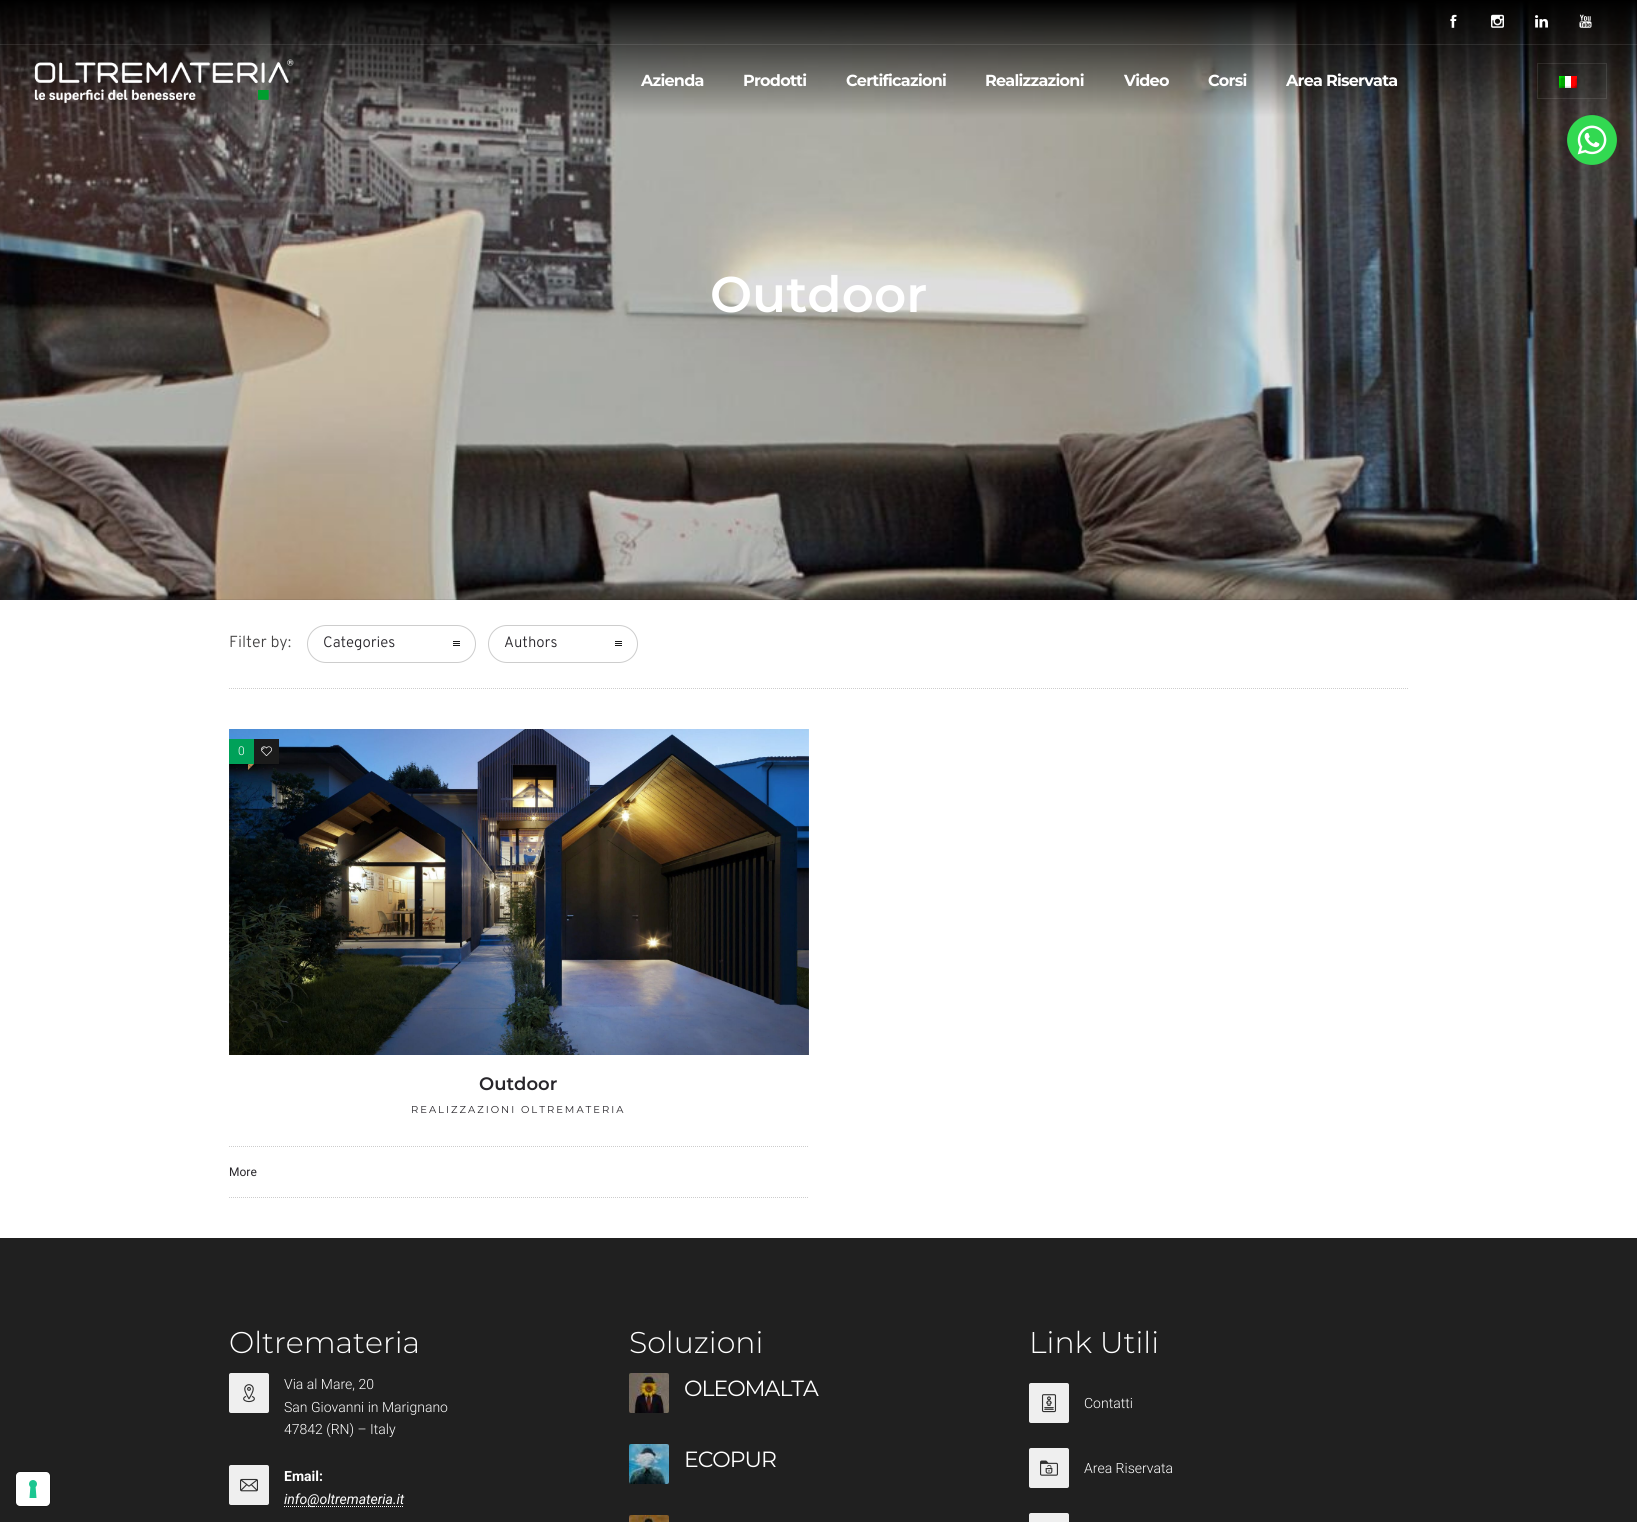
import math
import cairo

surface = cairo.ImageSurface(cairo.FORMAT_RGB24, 1637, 1522)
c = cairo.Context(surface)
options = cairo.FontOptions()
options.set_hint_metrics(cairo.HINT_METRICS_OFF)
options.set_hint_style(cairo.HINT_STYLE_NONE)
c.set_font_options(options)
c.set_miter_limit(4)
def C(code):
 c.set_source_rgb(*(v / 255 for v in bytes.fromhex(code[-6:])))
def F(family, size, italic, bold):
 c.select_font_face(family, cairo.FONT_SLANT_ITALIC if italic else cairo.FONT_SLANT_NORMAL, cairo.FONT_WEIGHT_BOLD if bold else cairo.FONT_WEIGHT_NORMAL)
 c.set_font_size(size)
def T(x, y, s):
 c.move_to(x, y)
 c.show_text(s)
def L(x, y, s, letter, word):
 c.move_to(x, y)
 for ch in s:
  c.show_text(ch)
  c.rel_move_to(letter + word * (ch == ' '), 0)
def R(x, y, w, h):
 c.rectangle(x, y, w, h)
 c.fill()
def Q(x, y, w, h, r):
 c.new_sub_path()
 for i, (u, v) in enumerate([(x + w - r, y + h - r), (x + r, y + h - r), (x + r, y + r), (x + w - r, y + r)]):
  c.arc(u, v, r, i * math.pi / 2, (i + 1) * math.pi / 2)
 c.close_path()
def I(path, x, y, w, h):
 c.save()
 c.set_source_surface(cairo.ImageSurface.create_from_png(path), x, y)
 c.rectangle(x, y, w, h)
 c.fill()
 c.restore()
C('ffffff')
c.paint()
I('9.png',0,0,1637,600)
c.set_source_rgba(1,1,1,0.1)
R(0,44,1637,1)
I('1.png',1450,14,7,14)
I('2.png',1491,14,13,14)
I('3.png',1535,15,13,13)
I('4.png',1579,14,13,14)
I('5.png',34,59,260,45)
F('Montserrat',16,0,1)
C('ffffff')
L(641,86,'Azienda',-.75,0)
L(743,86,'Prodotti',-.75,0)
L(846,86,'Certificazioni',-.75,0)
L(985,86,'Realizzazioni',-.75,0)
L(1124,86,'Video',-.75,0)
L(1208,86,'Corsi',-.75,0)
L(1286,86,'Area Riservata',-.75,0)
c.rectangle(1537.5,63.5,69,35)
c.set_source_rgba(1,1,1,0.1)
c.set_line_width(1)
c.stroke()
I('6.png',1559,76,18,12)
I('7.png',1567,115,50,50)
C('202020')
R(0,1238,1637,284)
Q(15.5,1471.5,35,35,4.5)
C('1b1b1b')
c.stroke()
C('ffffff')
Q(16,1472,34,34,4)
c.fill()
I('8.png',29,1480,8,18)
c.set_source_rgba(0.106,0.106,0.106,0.1)
R(18,599,1597,1)
F('Montserrat SemiBold',50,0,0)
C('ffffff')
T(710,312,'Outdoor')
c.new_path()
c.move_to(229,688.5)
c.line_to(1409,688.5)
C('cdcdcd')
c.set_dash([1,1])
c.stroke()
F('Overpass Light',16,0,0)
C('454444')
T(229,647,'Filter by:')
Q(307.5,625.5,168,37,18.5)
C('cdcdcd')
c.set_dash([])
c.stroke()
F('Overpass Light',15,0,0)
C('28262b')
T(323,647,'Categories')
C('1b1b1b')
R(453,645,7,1)
R(453,643,7,1)
R(453,641,7,1)
Q(488.5,625.5,149,37,18.5)
C('cdcdcd')
c.stroke()
C('28262b')
T(504,647,'Authors')
C('1b1b1b')
R(615,645,7,1)
R(615,643,7,1)
R(615,641,7,1)
I('10.png',229,729,580,326)
C('00a159')
R(229,739,25,25)
F('Roboto Light',12,0,0)
C('ffffff')
T(238,755,'0')
C('b38653')
c.new_path()
c.move_to(248,764)
c.line_to(254,764)
c.line_to(251,767)
c.close_path()
c.fill()
c.new_path()
c.move_to(248,770)
c.line_to(248,764)
c.line_to(251,767)
c.close_path()
c.fill()
C('1b1b1b')
R(254,739,25,25)
I('11.png',261,746,11,10)
F('Montserrat SemiBold',18,0,0)
C('28262b')
T(479,1090,'Outdoor')
F('Montserrat',10,0,0)
L(411,1113,'REALIZZAZIONI OLTREMATERIA',2,0)
c.new_path()
c.move_to(229,1146.5)
c.line_to(809,1146.5)
C('cdcdcd')
c.set_dash([1,1])
c.stroke()
c.new_path()
c.move_to(229,1197.5)
c.line_to(809,1197.5)
c.stroke()
F('Roboto',12,0,0)
C('28262b')
T(229,1176,'More')
F('Montserrat Light',30,0,0)
C('ffffff')
T(229,1353,'Oltremateria')
C('efefef')
Q(229,1373,40,40,2)
c.fill()
I('12.png',243,1384,12,19)
F('Roboto Light',14,0,0)
C('ffffff')
T(284,1389,'Via al Mare, 20')
T(284,1412,'San Giovanni in Marignano')
T(284,1434,'47842 (RN) – Italy')
C('efefef')
Q(229,1465,40,40,2)
c.fill()
I('13.png',240,1478,18,14)
F('Roboto',14,0,1)
C('ffffff')
T(284,1481,'Email:')
F('Roboto',14,1,0)
T(284,1504,'info@oltremateria.it')
c.new_path()
c.move_to(284,1506.5)
c.line_to(404,1506.5)
c.stroke()
F('Montserrat Light',30,0,0)
T(629,1353,'Soluzioni')
I('14.png',629,1373,40,40)
F('Montserrat',22,0,0)
L(684,1396,'OLEOMALTA',-1,0)
I('15.png',629,1444,40,40)
L(684,1467,'ECOPUR',-1,0)
I('16.png',629,1515,40,7)
F('Montserrat Light',30,0,0)
T(1029,1353,'Link Utili')
C('efefef')
Q(1029,1383,40,40,2)
c.fill()
I('17.png',1041,1394,16,19)
F('Roboto Light',14,0,0)
C('ffffff')
T(1084,1408,'Contatti')
C('efefef')
Q(1029,1448,40,40,2)
c.fill()
I('18.png',1040,1460,18,16)
C('ffffff')
T(1084,1473,'Area Riservata')
C('efefef')
Q(1029,1513,40,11,2)
c.fill()
surface.write_to_png('o.png')
